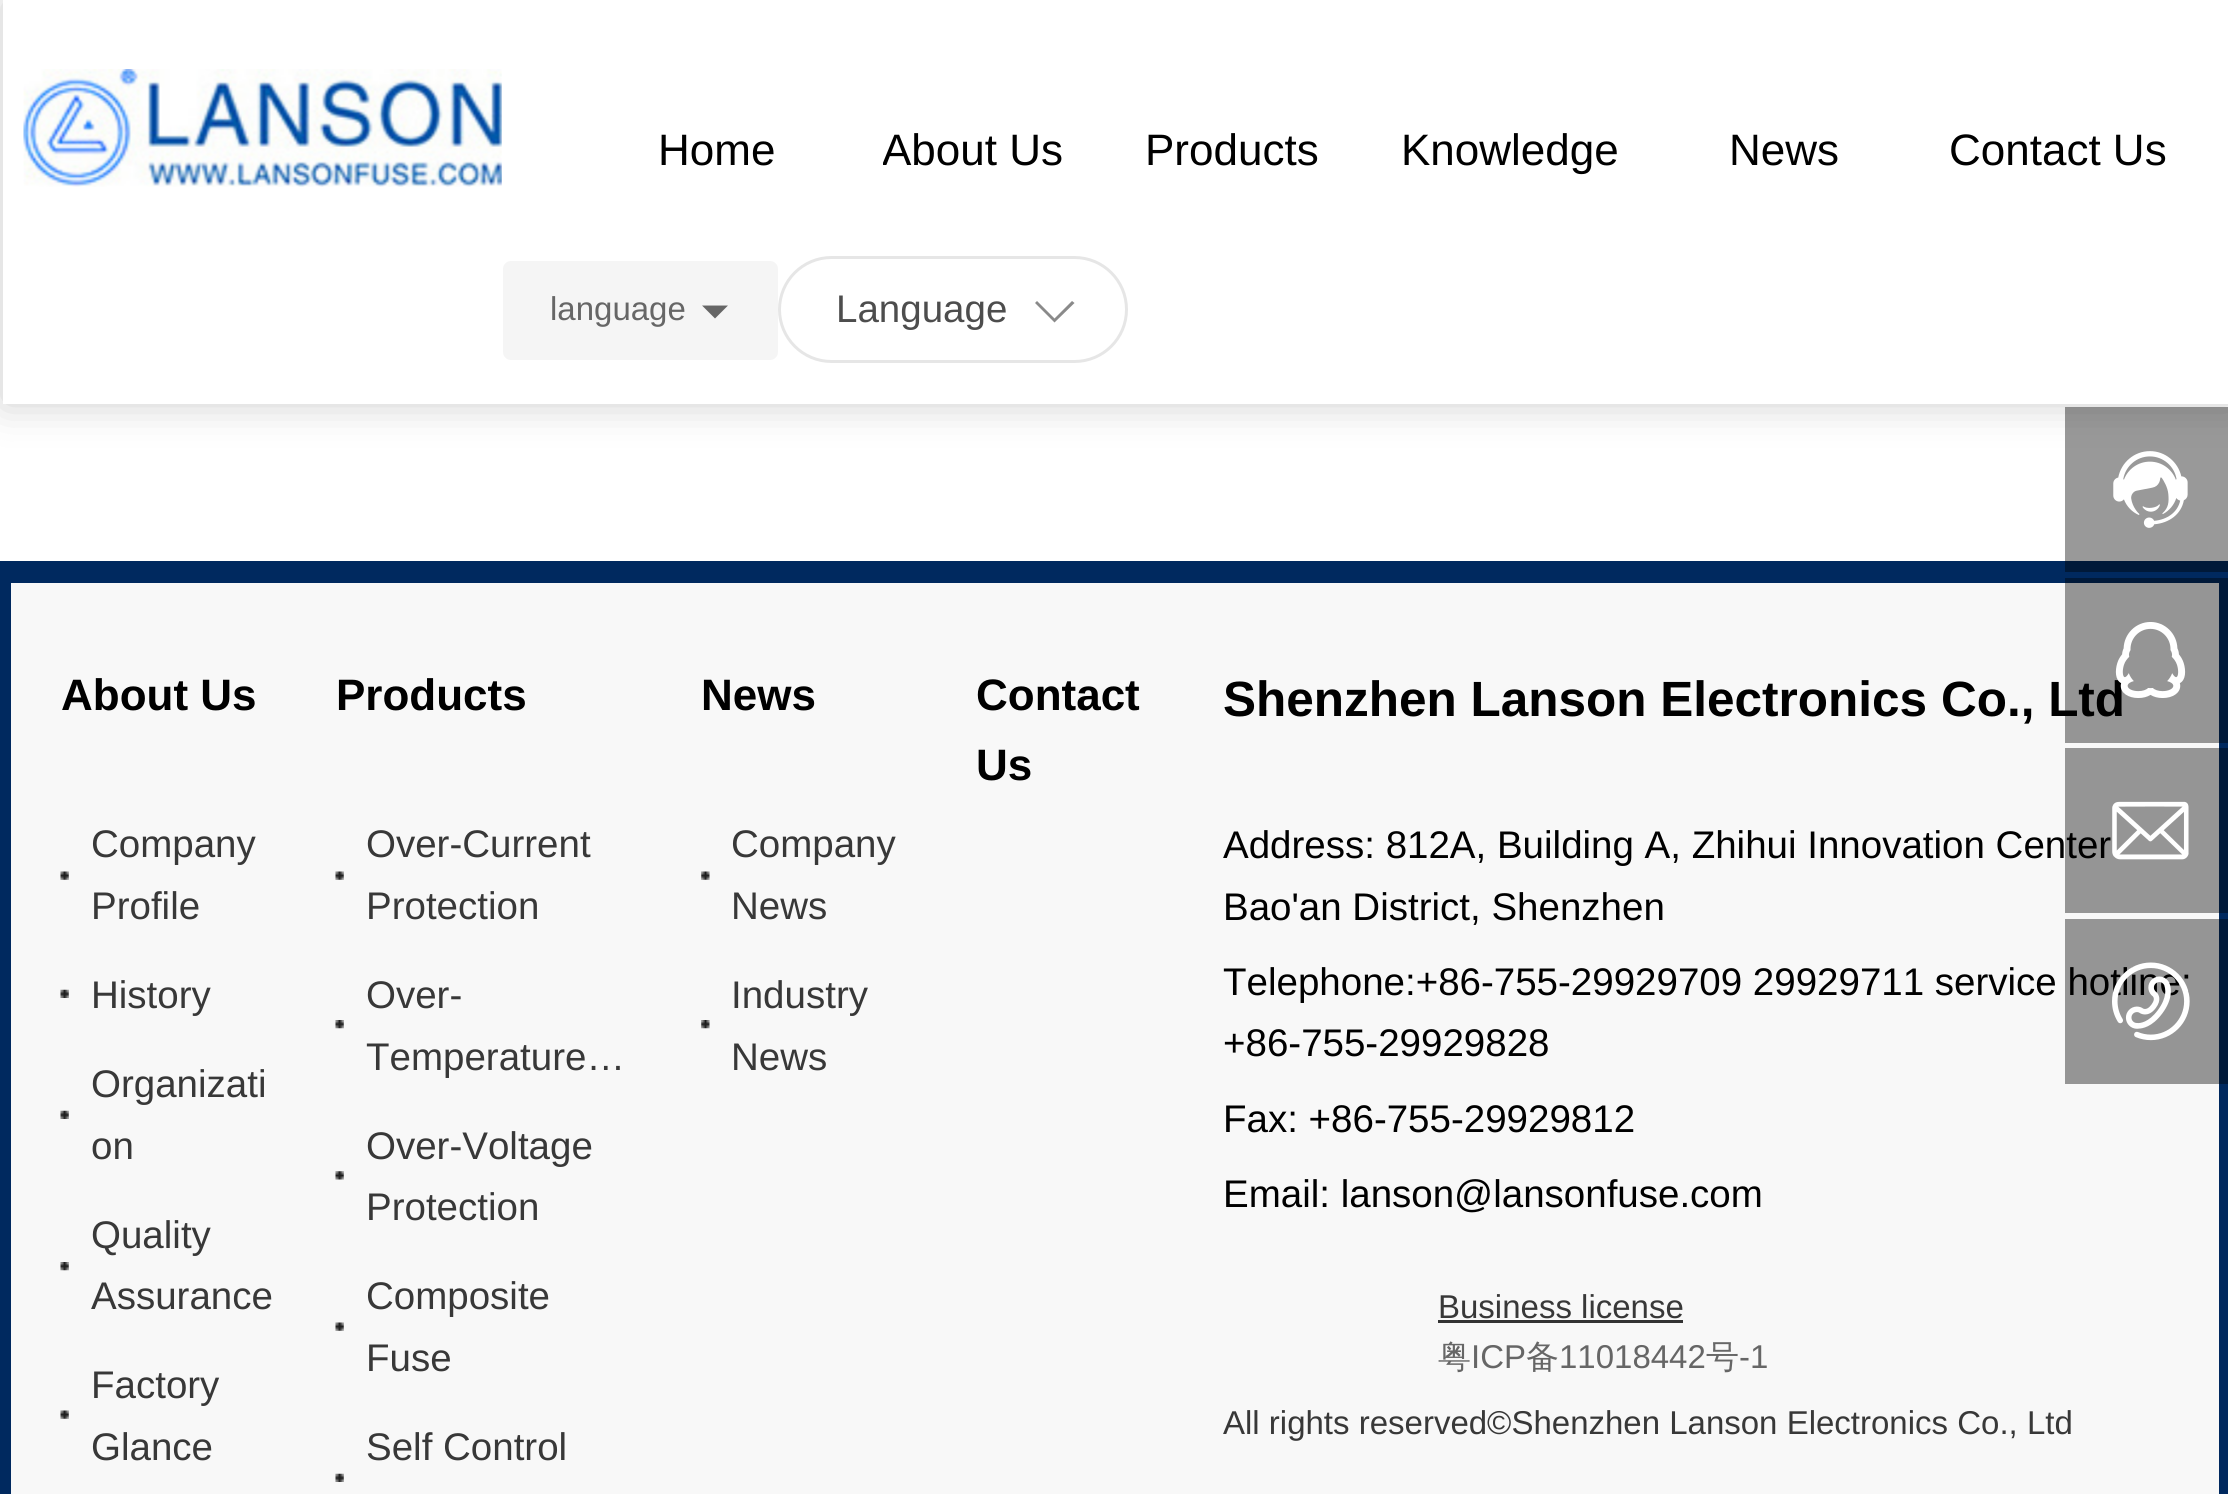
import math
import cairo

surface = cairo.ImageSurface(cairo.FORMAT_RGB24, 2228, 1494)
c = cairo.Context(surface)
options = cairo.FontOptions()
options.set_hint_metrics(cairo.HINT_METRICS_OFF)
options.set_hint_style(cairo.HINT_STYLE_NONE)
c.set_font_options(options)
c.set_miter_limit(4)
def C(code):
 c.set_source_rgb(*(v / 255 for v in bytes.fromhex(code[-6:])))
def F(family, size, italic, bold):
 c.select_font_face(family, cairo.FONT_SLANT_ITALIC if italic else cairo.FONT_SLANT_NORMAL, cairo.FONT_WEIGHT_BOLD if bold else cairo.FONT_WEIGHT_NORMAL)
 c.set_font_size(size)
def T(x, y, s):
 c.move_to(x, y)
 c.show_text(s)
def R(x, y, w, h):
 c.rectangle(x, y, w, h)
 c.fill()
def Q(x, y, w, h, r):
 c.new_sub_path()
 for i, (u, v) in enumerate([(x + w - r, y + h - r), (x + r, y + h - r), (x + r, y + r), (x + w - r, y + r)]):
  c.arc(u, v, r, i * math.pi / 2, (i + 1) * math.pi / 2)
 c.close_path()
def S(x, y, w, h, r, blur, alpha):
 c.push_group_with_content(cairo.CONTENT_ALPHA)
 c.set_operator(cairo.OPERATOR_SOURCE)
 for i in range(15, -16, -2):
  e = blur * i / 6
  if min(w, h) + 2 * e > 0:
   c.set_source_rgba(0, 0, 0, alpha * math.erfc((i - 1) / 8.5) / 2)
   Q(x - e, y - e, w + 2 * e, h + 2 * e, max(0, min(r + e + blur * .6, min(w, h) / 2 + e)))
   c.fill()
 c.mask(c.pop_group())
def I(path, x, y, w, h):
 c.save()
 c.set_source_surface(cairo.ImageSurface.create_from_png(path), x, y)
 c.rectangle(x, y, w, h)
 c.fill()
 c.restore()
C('ffffff')
c.paint()
C('000000')
S(3,0,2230,404,0,20.5,.2)
C('ffffff')
R(3,0,2225,404)
I('1.png',23,69,479,118)
F('Liberation Sans',44,0,0)
C('000000')
T(658,165,'Home')
c.save()
c.rectangle(883,69,181,165)
c.clip()
T(882,165,'About Us')
c.restore()
T(1145,165,'Products')
T(1401,165,'Knowledge')
T(1729,165,'News')
T(1949,165,'Contact Us')
C('f5f5f5')
Q(503,261,275,99,8)
c.fill()
F('Liberation Sans',33,0,0)
C('666666')
T(550,320,'language')
c.new_path()
c.move_to(702,305.5)
c.line_to(715,318.5)
c.line_to(728,305.5)
c.close_path()
c.fill()
Q(779.5,257.5,347,104,52)
C('e6e6e6')
c.set_line_width(3)
c.stroke()
F('Liberation Sans',38.5,0,0)
C('4d4d4d')
T(836,322,'Language')
C('8a8a8a')
c.new_path()
c.move_to(1037,301)
c.line_to(1035,303)
c.line_to(1054.5,322.5)
c.line_to(1074.5,303)
c.line_to(1072,301)
c.line_to(1054.5,318.5)
c.close_path()
c.fill()
C('00295f')
R(0,561,2228,933)
C('f8f8f8')
R(11,583,2208,911)
F('Liberation Sans',44,0,1)
C('000000')
T(61,710,'About Us')
I('2.png',60,871,9,9)
F('Liberation Sans',38.5,0,0)
C('383838')
T(91,857,'Company')
T(91,919,'Profile')
I('3.png',60,989,9,9)
T(91,1008,'History')
I('3.png',60,1110,9,9)
T(91,1097,'Organizati')
T(91,1159,'on')
I('4.png',60,1262,9,9)
T(91,1248,'Quality')
T(91,1309,'Assurance')
I('2.png',60,1410,9,9)
T(91,1398,'Factory')
T(91,1460,'Glance')
F('Liberation Sans',44,0,1)
C('000000')
T(336,710,'Products')
I('2.png',335,871,9,9)
F('Liberation Sans',38.5,0,0)
C('383838')
T(366,857,'Over-Current')
T(366,919,'Protection')
I('4.png',335,1020,9,9)
T(366,1008,'Over-')
T(366,1070,'Temperature…')
I('5.png',335,1171,9,9)
T(366,1159,'Over-Voltage')
T(366,1220,'Protection')
I('2.png',335,1322,9,9)
T(366,1309,'Composite')
T(366,1371,'Fuse')
I('3.png',335,1473,9,9)
T(366,1460,'Self Control')
F('Liberation Sans',44,0,1)
C('000000')
T(701,710,'News')
I('6.png',701,871,9,9)
F('Liberation Sans',38.5,0,0)
C('383838')
T(731,857,'Company')
T(731,919,'News')
I('7.png',701,1020,9,9)
T(731,1008,'Industry')
T(731,1070,'News')
F('Liberation Sans',44,0,1)
C('000000')
T(976,710,'Contact')
T(976,780,'Us')
F('Liberation Sans',49.5,0,1)
T(1223,716,'Shenzhen Lanson Electronics Co., Ltd')
F('Liberation Sans',38.5,0,0)
T(1223,858,'Address: 812A, Building A, Zhihui Innovation Center')
T(1223,920,'Bao\'an District, Shenzhen')
T(1223,995,'Telephone:+86-755-29929709 29929711 service hotline:')
T(1223,1056,'+86-755-29929828')
T(1223,1132,'Fax: +86-755-29929812')
T(1223,1207,'Email: lanson@lansonfuse.com')
F('Liberation Sans',33,0,0)
C('383838')
T(1438,1318,'Business license')
C('333333')
R(1438,1320,245,3)
F('WenQuanYi Zen Hei Medium',33,0,0)
C('666666')
T(1438,1368,'粤')
F('Liberation Sans',33,0,0)
T(1471,1368,'ICP')
F('WenQuanYi Zen Hei Medium',33,0,0)
T(1526,1368,'备')
F('Liberation Sans',33,0,0)
T(1559,1368,'11018442')
F('WenQuanYi Zen Hei Medium',33,0,0)
T(1706,1368,'号')
F('Liberation Sans',33,0,0)
T(1739,1368,'-1')
C('383838')
T(1223,1434,'All rights reserved©Shenzhen Lanson Electronics Co., Ltd')
c.set_source_rgba(0,0,0,0.4)
R(2065,407,163,165)
I('8.png',2113,451,75,77)
R(2065,578,163,165)
I('9.png',2115,622,71,76)
R(2065,748,163,165)
I('10.png',2112,801,77,59)
R(2065,919,163,165)
I('11.png',2112,962,78,79)
surface.write_to_png('o.png')
